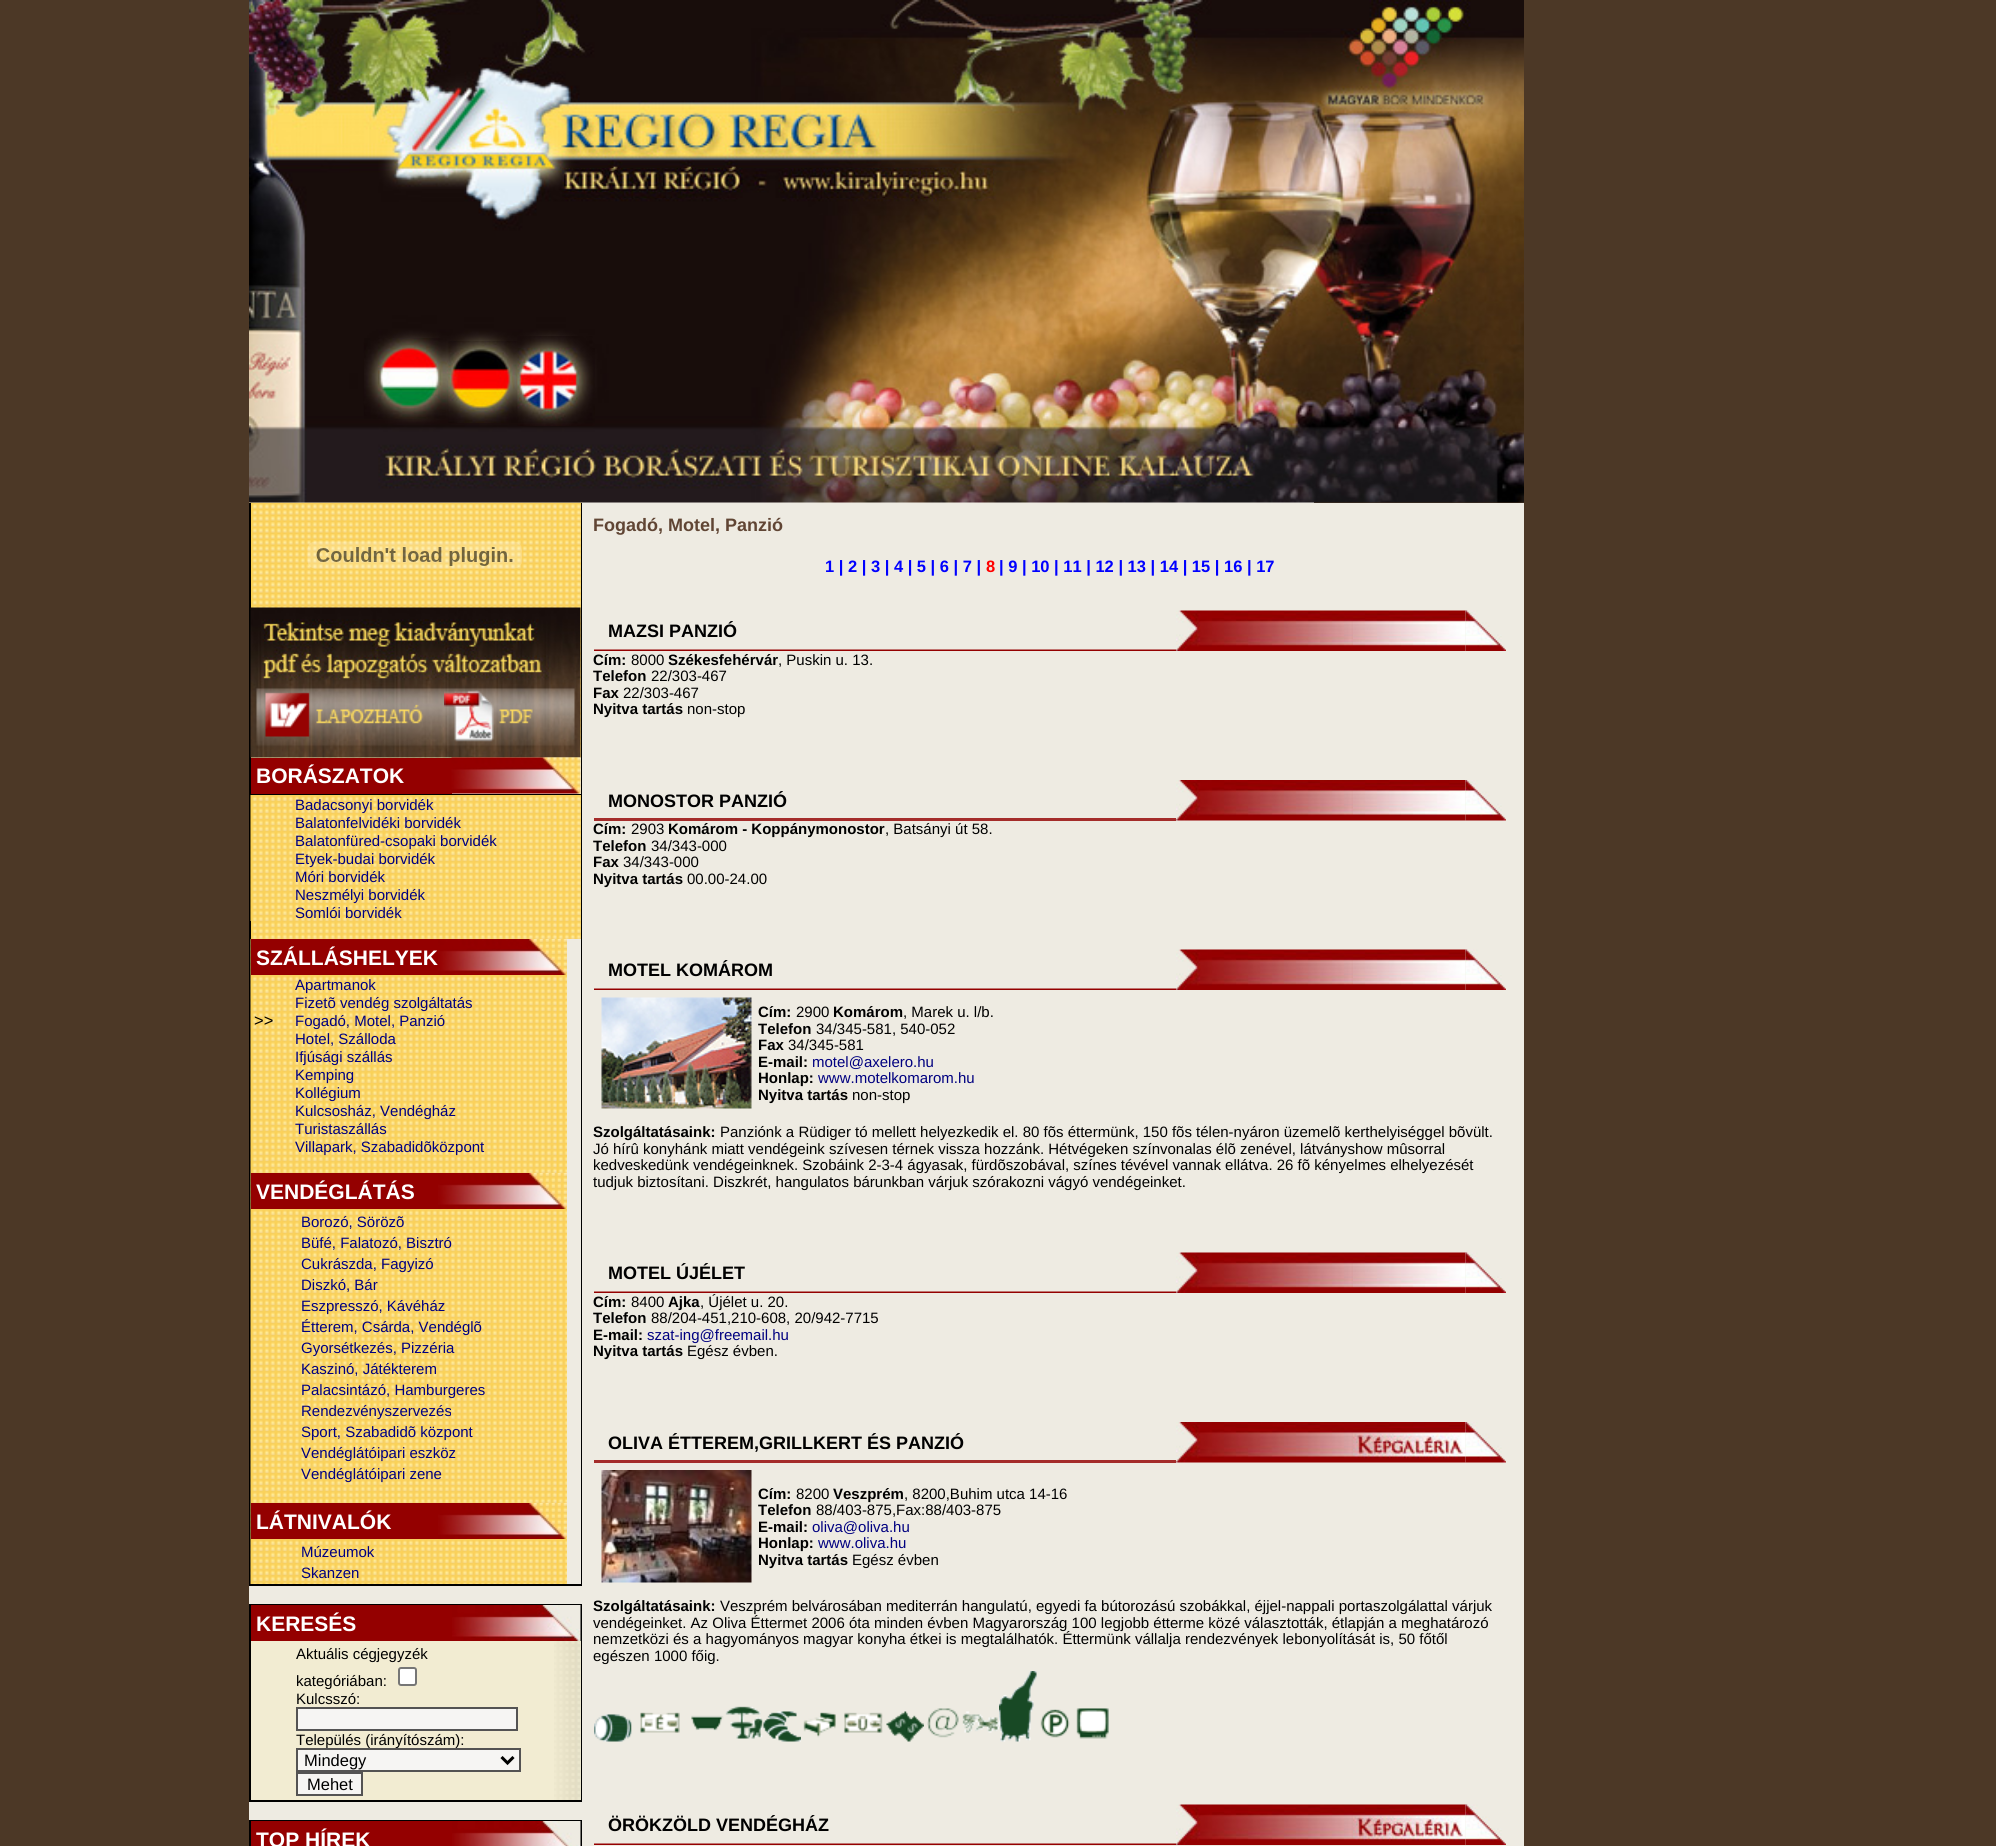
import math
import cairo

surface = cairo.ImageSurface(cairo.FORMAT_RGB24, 1996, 1846)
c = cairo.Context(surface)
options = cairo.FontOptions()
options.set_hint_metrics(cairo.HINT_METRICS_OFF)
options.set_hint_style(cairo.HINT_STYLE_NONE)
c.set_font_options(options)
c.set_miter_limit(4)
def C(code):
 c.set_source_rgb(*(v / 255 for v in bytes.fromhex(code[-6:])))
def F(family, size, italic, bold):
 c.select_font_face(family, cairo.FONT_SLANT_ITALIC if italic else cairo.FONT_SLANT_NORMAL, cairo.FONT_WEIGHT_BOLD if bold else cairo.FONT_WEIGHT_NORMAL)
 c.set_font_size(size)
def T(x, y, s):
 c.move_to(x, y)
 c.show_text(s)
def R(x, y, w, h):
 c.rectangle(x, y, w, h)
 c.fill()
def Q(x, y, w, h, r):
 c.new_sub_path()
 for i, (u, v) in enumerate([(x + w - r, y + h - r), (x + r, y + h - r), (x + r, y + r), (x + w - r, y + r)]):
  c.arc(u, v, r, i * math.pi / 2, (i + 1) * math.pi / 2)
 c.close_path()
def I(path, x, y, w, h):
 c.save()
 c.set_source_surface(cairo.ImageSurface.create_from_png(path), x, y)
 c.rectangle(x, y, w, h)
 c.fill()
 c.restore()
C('4c3826')
c.paint()
C('eeebe2')
R(249,502,1065,1318)
I('6.png',249,502,333,256)
I('1.png',249,0,1275,503)
I('2.png',562,168,432,30)
I('3.png',364,338,82,81)
I('4.png',448,341,70,82)
I('5.png',517,336,78,90)
C('000000')
R(581,503,1,1083)
R(249,503,2,255)
I('7.png',307,541,215,28)
I('8.png',250,607,331,151)
I('9.png',265,692,159,45)
I('10.png',444,690,89,52)
R(249,794,333,1)
R(249,758,2,181)
C('940000')
R(251,758,201,36)
F('Liberation Sans',21,0,1)
C('ffffff')
T(256,783,'BORÁSZATOK')
I('11.png',451,757,130,37)
I('12.png',251,795,330,144)
I('13.png',250,795,1,126)
F('Liberation Sans',15,0,0)
C('000080')
T(295,810,'Badacsonyi borvidék')
T(295,828,'Balatonfelvidéki borvidék')
T(295,846,'Balatonfüred-csopaki borvidék')
T(295,864,'Etyek-budai borvidék')
T(295,882,'Móri borvidék')
T(295,900,'Neszmélyi borvidék')
T(295,918,'Somlói borvidék')
C('000000')
R(249,1584,333,2)
R(249,939,2,647)
I('14.png',250,939,317,645)
C('940000')
R(251,939,187,36)
F('Liberation Sans',21,0,1)
C('ffffff')
T(256,965,'SZÁLLÁSHELYEK')
I('15.png',438,939,129,36)
F('Liberation Sans',15,0,0)
C('000080')
T(295,990,'Apartmanok')
T(295,1008,'Fizetõ vendég szolgáltatás')
F('Liberation Sans',16.5,0,0)
C('000000')
T(254,1026,'>>')
F('Liberation Sans',15,0,0)
C('000080')
T(295,1026,'Fogadó, Motel, Panzió')
T(295,1044,'Hotel, Szálloda')
T(295,1062,'Ifjúsági szállás')
T(295,1080,'Kemping')
T(295,1098,'Kollégium')
T(295,1116,'Kulcsosház, Vendégház')
T(295,1134,'Turistaszállás')
T(295,1152,'Villapark, Szabadidõközpont')
C('940000')
R(251,1173,187,36)
F('Liberation Sans',21,0,1)
C('ffffff')
T(256,1199,'VENDÉGLÁTÁS')
I('15.png',438,1173,129,36)
F('Liberation Sans',15,0,0)
C('000080')
T(301,1227,'Borozó, Sörözõ')
T(301,1248,'Büfé, Falatozó, Bisztró')
T(301,1269,'Cukrászda, Fagyizó')
T(301,1290,'Diszkó, Bár')
T(301,1311,'Eszpresszó, Kávéház')
T(301,1332,'Étterem, Csárda, Vendéglõ')
T(301,1353,'Gyorsétkezés, Pizzéria')
T(301,1374,'Kaszinó, Játékterem')
T(301,1395,'Palacsintázó, Hamburgeres')
T(301,1416,'Rendezvényszervezés')
T(301,1437,'Sport, Szabadidõ központ')
T(301,1458,'Vendéglátóipari eszköz')
T(301,1479,'Vendéglátóipari zene')
C('940000')
R(251,1503,187,36)
F('Liberation Sans',21,0,1)
C('ffffff')
T(256,1529,'LÁTNIVALÓK')
I('15.png',438,1503,129,36)
F('Liberation Sans',15,0,0)
C('000080')
T(301,1557,'Múzeumok')
T(301,1578,'Skanzen')
c.rectangle(250,1605,331,196)
C('000000')
c.stroke()
C('940000')
R(251,1605,201,36)
F('Liberation Sans',21,0,1)
C('ffffff')
T(256,1631,'KERESÉS')
I('16.png',452,1605,129,36)
C('f2ecd2')
R(251,1641,330,159)
F('Liberation Sans',15,0,0)
C('000000')
T(296,1659,'Aktuális cégjegyzék')
T(296,1686,'kategóriában:')
C('ffffff')
Q(399,1668,17,17,2)
c.fill_preserve()
C('767676')
c.stroke()
C('000000')
T(296,1704,'Kulcsszó:')
C('f6f5f3')
c.rectangle(297,1708,220,22)
c.fill_preserve()
C('545353')
c.stroke()
C('000000')
T(296,1745,'Település (irányítószám):')
C('f6f5f3')
c.rectangle(297,1749,223,22)
c.fill_preserve()
C('545353')
c.stroke()
c.new_path()
c.move_to(501.5,1757)
c.line_to(507.5,1763)
c.line_to(513.5,1757)
C('000000')
c.set_line_width(3)
c.stroke()
F('Liberation Sans',16.5,0,0)
T(304,1766,'Mindegy')
C('f6f5f3')
c.rectangle(297,1773,65,22)
c.fill_preserve()
C('545353')
c.set_line_width(2)
c.stroke()
C('000000')
T(307,1790,'Mehet')
I('17.png',554,1641,27,159)
c.rectangle(250,1821,331,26)
c.stroke()
C('940000')
R(251,1821,201,25)
F('Liberation Sans',21,0,1)
C('ffffff')
T(256,1847,'TOP HÍREK')
I('18.png',452,1821,129,25)
C('eeebe2')
R(582,503,942,1343)
F('Liberation Sans',18,0,1)
C('604534')
T(593,531,'Fogadó, Motel, Panzió')
F('Liberation Sans',16.5,0,1)
C('0000ff')
T(825,572,'1 | 2 | 3 | 4 | 5 | 6 | 7 |')
C('ff0000')
T(986,572,'8')
C('0000ff')
T(999,572,'| 9 | 10 | 11 | 12 | 13 | 14 | 15 | 16 | 17')
I('19.png',594,649,582,2)
F('Liberation Sans',18,0,1)
C('000000')
T(608,637,'MAZSI PANZIÓ')
I('20.png',1176,610,177,41)
I('21.png',1353,610,113,41)
I('22.png',1465,610,41,41)
F('Liberation Sans',15,0,1)
T(593,665,'Cím:')
F('Liberation Sans',15,0,0)
T(631,665,'8000')
F('Liberation Sans',15,0,1)
T(668,665,'Székesfehérvár')
F('Liberation Sans',15,0,0)
T(778,665,', Puskin u. 13.')
F('Liberation Sans',15,0,1)
T(593,681,'Telefon')
F('Liberation Sans',15,0,0)
T(651,681,'22/303-467')
F('Liberation Sans',15,0,1)
T(593,698,'Fax')
F('Liberation Sans',15,0,0)
T(623,698,'22/303-467')
F('Liberation Sans',15,0,1)
T(593,714,'Nyitva tartás')
F('Liberation Sans',15,0,0)
T(687,714,'non-stop')
C('a42c2a')
R(594,818,582,3)
F('Liberation Sans',18,0,1)
C('000000')
T(608,807,'MONOSTOR PANZIÓ')
I('23.png',1176,780,177,41)
I('24.png',1353,780,113,41)
I('25.png',1465,780,41,41)
F('Liberation Sans',15,0,1)
T(593,834,'Cím:')
F('Liberation Sans',15,0,0)
T(631,834,'2903')
F('Liberation Sans',15,0,1)
T(668,834,'Komárom - Koppánymonostor')
F('Liberation Sans',15,0,0)
T(885,834,', Batsányi út 58.')
F('Liberation Sans',15,0,1)
T(593,851,'Telefon')
F('Liberation Sans',15,0,0)
T(651,851,'34/343-000')
F('Liberation Sans',15,0,1)
T(593,867,'Fax')
F('Liberation Sans',15,0,0)
T(623,867,'34/343-000')
F('Liberation Sans',15,0,1)
T(593,884,'Nyitva tartás')
F('Liberation Sans',15,0,0)
T(687,884,'00.00-24.00')
I('19.png',594,988,582,2)
F('Liberation Sans',18,0,1)
T(608,976,'MOTEL KOMÁROM')
I('20.png',1176,949,177,41)
I('21.png',1353,949,113,41)
I('22.png',1465,949,41,41)
I('26.png',601,997,151,112)
F('Liberation Sans',15,0,1)
T(758,1017,'Cím:')
F('Liberation Sans',15,0,0)
T(796,1017,'2900')
F('Liberation Sans',15,0,1)
T(833,1017,'Komárom')
F('Liberation Sans',15,0,0)
T(903,1017,', Marek u. l/b.')
F('Liberation Sans',15,0,1)
T(758,1034,'Telefon')
F('Liberation Sans',15,0,0)
T(816,1034,'34/345-581, 540-052')
F('Liberation Sans',15,0,1)
T(758,1050,'Fax')
F('Liberation Sans',15,0,0)
T(788,1050,'34/345-581')
F('Liberation Sans',15,0,1)
T(758,1067,'E-mail:')
F('Liberation Sans',15,0,0)
C('000080')
T(812,1067,'motel@axelero.hu')
F('Liberation Sans',15,0,1)
C('000000')
T(758,1083,'Honlap:')
F('Liberation Sans',15,0,0)
C('000080')
T(818,1083,'www.motelkomarom.hu')
F('Liberation Sans',15,0,1)
C('000000')
T(758,1100,'Nyitva tartás')
F('Liberation Sans',15,0,0)
T(852,1100,'non-stop')
F('Liberation Sans',15,0,1)
T(593,1137,'Szolgáltatásaink:')
F('Liberation Sans',15,0,0)
T(720,1137,'Panziónk a Rüdiger tó mellett helyezkedik el. 80 fõs éttermünk, 150 fõs télen-nyáron üzemelõ kerthelyiséggel bõvült.')
T(593,1154,'Jó hírû konyhánk miatt vendégeink szívesen térnek vissza hozzánk. Hétvégeken színvonalas élõ zenével, látványshow mûsorral')
T(593,1170,'kedveskedünk vendégeinknek. Szobáink 2-3-4 ágyasak, fürdõszobával, színes tévével vannak ellátva. 26 fõ kényelmes elhelyezését')
T(593,1187,'tudjuk biztosítani. Diszkrét, hangulatos bárunkban várjuk szórakozni vágyó vendégeinket.')
I('19.png',594,1291,582,2)
F('Liberation Sans',18,0,1)
T(608,1279,'MOTEL ÚJÉLET')
I('20.png',1176,1252,177,41)
I('21.png',1353,1252,113,41)
I('22.png',1465,1252,41,41)
F('Liberation Sans',15,0,1)
T(593,1307,'Cím:')
F('Liberation Sans',15,0,0)
T(631,1307,'8400')
F('Liberation Sans',15,0,1)
T(668,1307,'Ajka')
F('Liberation Sans',15,0,0)
T(700,1307,', Újélet u. 20.')
F('Liberation Sans',15,0,1)
T(593,1323,'Telefon')
F('Liberation Sans',15,0,0)
T(651,1323,'88/204-451,210-608, 20/942-7715')
F('Liberation Sans',15,0,1)
T(593,1340,'E-mail:')
F('Liberation Sans',15,0,0)
C('000080')
T(647,1340,'szat-ing@freemail.hu')
F('Liberation Sans',15,0,1)
C('000000')
T(593,1356,'Nyitva tartás')
F('Liberation Sans',15,0,0)
T(687,1356,'Egész évben.')
C('a42c2a')
R(594,1460,582,3)
F('Liberation Sans',18,0,1)
C('000000')
T(608,1449,'OLIVA ÉTTEREM,GRILLKERT ÉS PANZIÓ')
I('23.png',1176,1422,177,41)
I('27.png',1353,1422,113,41)
I('28.png',1465,1422,41,41)
I('29.png',601,1470,151,113)
F('Liberation Sans',15,0,1)
T(758,1499,'Cím:')
F('Liberation Sans',15,0,0)
T(796,1499,'8200')
F('Liberation Sans',15,0,1)
T(833,1499,'Veszprém')
F('Liberation Sans',15,0,0)
T(904,1499,', 8200,Buhim utca 14-16')
F('Liberation Sans',15,0,1)
T(758,1515,'Telefon')
F('Liberation Sans',15,0,0)
T(816,1515,'88/403-875,Fax:88/403-875')
F('Liberation Sans',15,0,1)
T(758,1532,'E-mail:')
F('Liberation Sans',15,0,0)
C('000080')
T(812,1532,'oliva@oliva.hu')
F('Liberation Sans',15,0,1)
C('000000')
T(758,1548,'Honlap:')
F('Liberation Sans',15,0,0)
C('000080')
T(818,1548,'www.oliva.hu')
F('Liberation Sans',15,0,1)
C('000000')
T(758,1565,'Nyitva tartás')
F('Liberation Sans',15,0,0)
T(852,1565,'Egész évben')
F('Liberation Sans',15,0,1)
T(593,1611,'Szolgáltatásaink:')
F('Liberation Sans',15,0,0)
T(720,1611,'Veszprém belvárosában mediterrán hangulatú, egyedi fa bútorozású szobákkal, éjjel-nappali portaszolgálattal várjuk')
T(593,1628,'vendégeinket. Az Oliva Éttermet 2006 óta minden évben Magyarország 100 legjobb étterme közé választották, étlapján a meghatározó')
T(593,1644,'nemzetközi és a hagyományos magyar konyha étkei is megtalálhatók. Éttermünk vállalja rendezvények lebonyolítását is, 50 főtől')
T(593,1661,'egészen 1000 főig.')
I('30.png',594,1714,38,28)
I('31.png',631,1712,49,23)
I('32.png',691,1715,33,16)
I('33.png',725,1706,38,33)
I('34.png',763,1711,38,31)
I('35.png',803,1712,33,26)
I('36.png',844,1712,39,21)
I('37.png',886,1711,38,31)
I('38.png',927,1708,32,30)
I('39.png',962,1711,37,22)
I('40.png',999,1671,38,71)
I('41.png',1040,1709,30,29)
I('42.png',1076,1708,33,31)
I('19.png',594,1843,582,2)
F('Liberation Sans',18,0,1)
T(608,1831,'ÖRÖKZÖLD VENDÉGHÁZ')
I('20.png',1176,1804,177,41)
I('43.png',1353,1804,113,41)
I('44.png',1465,1804,41,41)
surface.write_to_png('o.png')
